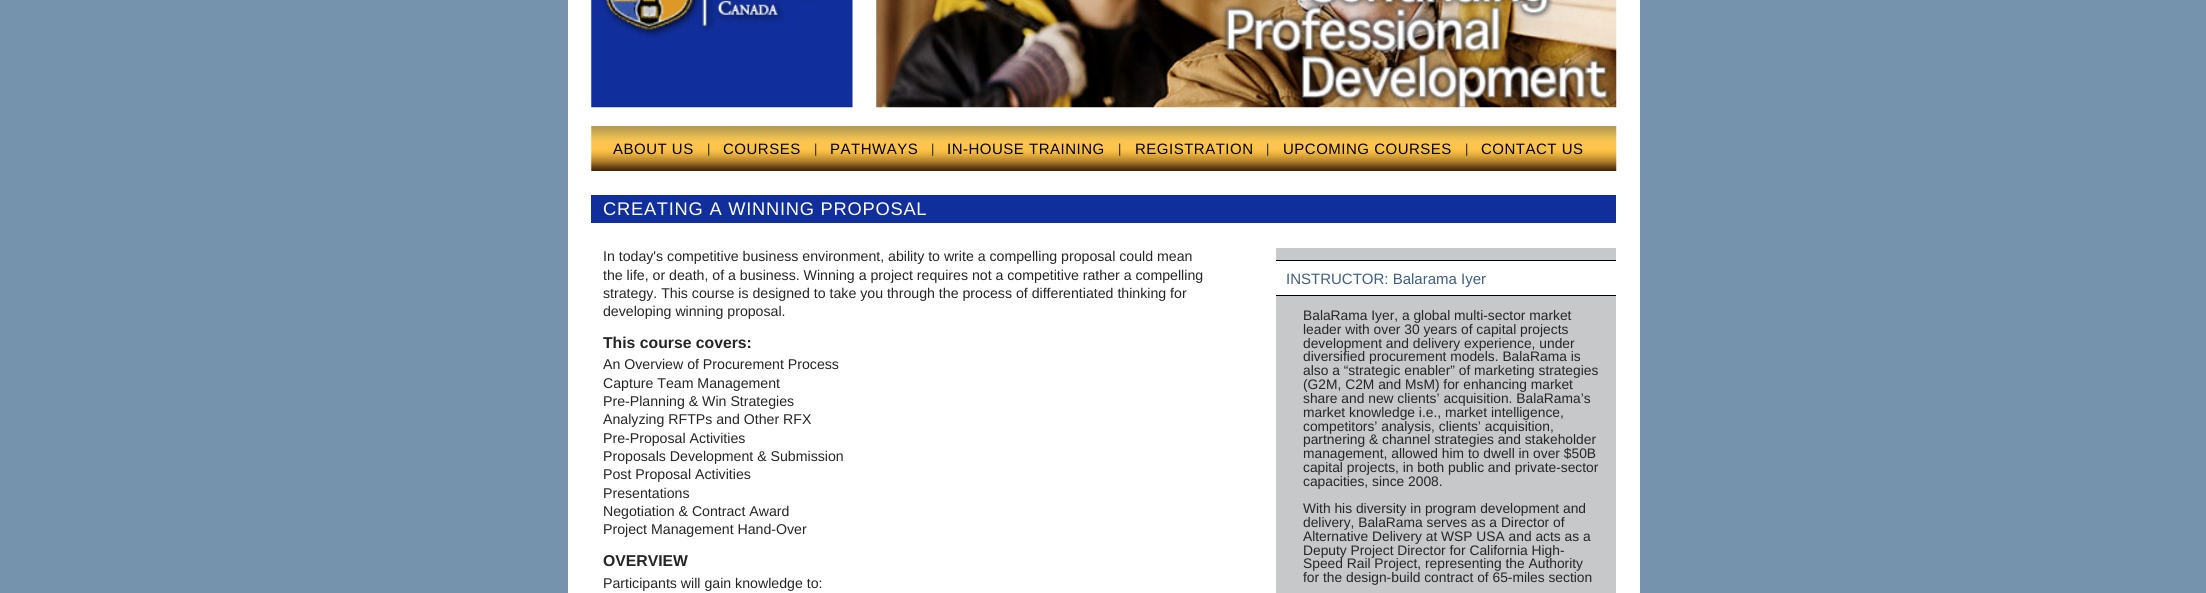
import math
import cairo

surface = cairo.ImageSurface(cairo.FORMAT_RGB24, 2206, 593)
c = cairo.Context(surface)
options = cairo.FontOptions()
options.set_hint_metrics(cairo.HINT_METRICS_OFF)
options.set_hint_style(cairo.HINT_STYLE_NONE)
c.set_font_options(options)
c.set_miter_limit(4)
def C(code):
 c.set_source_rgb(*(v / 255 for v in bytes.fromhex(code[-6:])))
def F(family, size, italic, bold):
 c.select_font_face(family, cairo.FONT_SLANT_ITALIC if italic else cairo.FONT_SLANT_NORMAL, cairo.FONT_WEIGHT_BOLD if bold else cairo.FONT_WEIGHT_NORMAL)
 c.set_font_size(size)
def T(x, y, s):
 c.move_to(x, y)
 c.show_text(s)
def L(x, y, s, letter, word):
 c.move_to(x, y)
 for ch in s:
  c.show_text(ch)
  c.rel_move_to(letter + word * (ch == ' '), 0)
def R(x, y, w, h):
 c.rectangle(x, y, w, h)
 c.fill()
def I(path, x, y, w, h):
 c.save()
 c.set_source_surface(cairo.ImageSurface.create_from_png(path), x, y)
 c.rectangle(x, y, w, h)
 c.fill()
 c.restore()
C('7693ae')
c.paint()
C('ffffff')
R(568,0,1072,593)
I('1.png',591,0,262,108)
I('2.png',876,0,741,108)
I('3.png',591,126,1026,45)
F('Liberation Sans',15,0,0)
C('000000')
L(613,154,'ABOUT US',.5,0)
F('Liberation Sans',13,0,0)
C('252525')
L(707,153,'|',.5,0)
F('Liberation Sans',15,0,0)
C('000000')
L(723,154,'COURSES',.5,0)
F('Liberation Sans',13,0,0)
C('252525')
L(814,153,'|',.5,0)
F('Liberation Sans',15,0,0)
C('000000')
L(830,154,'PATHWAYS',.5,0)
F('Liberation Sans',13,0,0)
C('252525')
L(931,153,'|',.5,0)
F('Liberation Sans',15,0,0)
C('000000')
L(947,154,'IN-HOUSE TRAINING',.5,0)
F('Liberation Sans',13,0,0)
C('252525')
L(1118,153,'|',.5,0)
F('Liberation Sans',15,0,0)
C('000000')
L(1135,154,'REGISTRATION',.5,0)
F('Liberation Sans',13,0,0)
C('252525')
L(1266,153,'|',.5,0)
F('Liberation Sans',15,0,0)
C('000000')
L(1283,154,'UPCOMING COURSES',.5,0)
F('Liberation Sans',13,0,0)
C('252525')
L(1465,153,'|',.5,0)
F('Liberation Sans',15,0,0)
C('000000')
L(1481,154,'CONTACT US',.5,0)
C('112f9c')
R(591,195,1025,28)
F('Liberation Sans',18.3,0,0)
C('ffffff')
L(603,215,'CREATING A WINNING PROPOSAL',.75,0)
F('Liberation Sans',14.15,0,0)
C('252525')
T(603,261,'In today\'s competitive business environment, ability to write a compelling proposal could mean')
T(603,280,'the life, or death, of a business. Winning a project requires not a competitive rather a compelling')
T(603,298,'strategy. This course is designed to take you through the process of differentiated thinking for')
T(603,316,'developing winning proposal.')
F('Liberation Sans',15.75,0,1)
T(603,348,'This course covers:')
F('Liberation Sans',14.15,0,0)
T(603,369,'An Overview of Procurement Process')
T(603,388,'Capture Team Management')
T(603,406,'Pre-Planning & Win Strategies')
T(603,424,'Analyzing RFTPs and Other RFX')
T(603,443,'Pre-Proposal Activities')
T(603,461,'Proposals Development & Submission')
T(603,479,'Post Proposal Activities')
T(603,498,'Presentations')
T(603,516,'Negotiation & Contract Award')
T(603,534,'Project Management Hand-Over')
F('Liberation Sans',15.75,0,1)
T(603,566,'OVERVIEW')
F('Liberation Sans',14.15,0,0)
T(603,588,'Participants will gain knowledge to:')
C('c6c8ca')
R(1276,248,340,345)
C('ffffff')
R(1276,261,340,34)
C('000000')
R(1276,260,340,1)
R(1276,295,340,1)
F('Liberation Sans',15,0,0)
C('3e5f7f')
T(1286,284,'INSTRUCTOR: Balarama Iyer')
F('Liberation Sans',13.8,0,0)
C('252525')
T(1303,320,'BalaRama Iyer, a global multi-sector market')
T(1303,334,'leader with over 30 years of capital projects')
T(1303,348,'development and delivery experience, under')
T(1303,361,'diversified procurement models. BalaRama is')
T(1303,375,'also a “strategic enabler” of marketing strategies')
T(1303,389,'(G2M, C2M and MsM) for enhancing market')
T(1303,403,'share and new clients’ acquisition. BalaRama’s')
T(1303,417,'market knowledge i.e., market intelligence,')
T(1303,431,'competitors’ analysis, clients’ acquisition,')
T(1303,444,'partnering & channel strategies and stakeholder')
T(1303,458,'management, allowed him to dwell in over $50B')
T(1303,472,'capital projects, in both public and private-sector')
T(1303,486,'capacities, since 2008.')
T(1303,513,'With his diversity in program development and')
T(1303,527,'delivery, BalaRama serves as a Director of')
T(1303,541,'Alternative Delivery at WSP USA and acts as a')
T(1303,555,'Deputy Project Director for California High-')
T(1303,568,'Speed Rail Project, representing the Authority')
T(1303,582,'for the design-build contract of 65-miles section')
surface.write_to_png('o.png')
